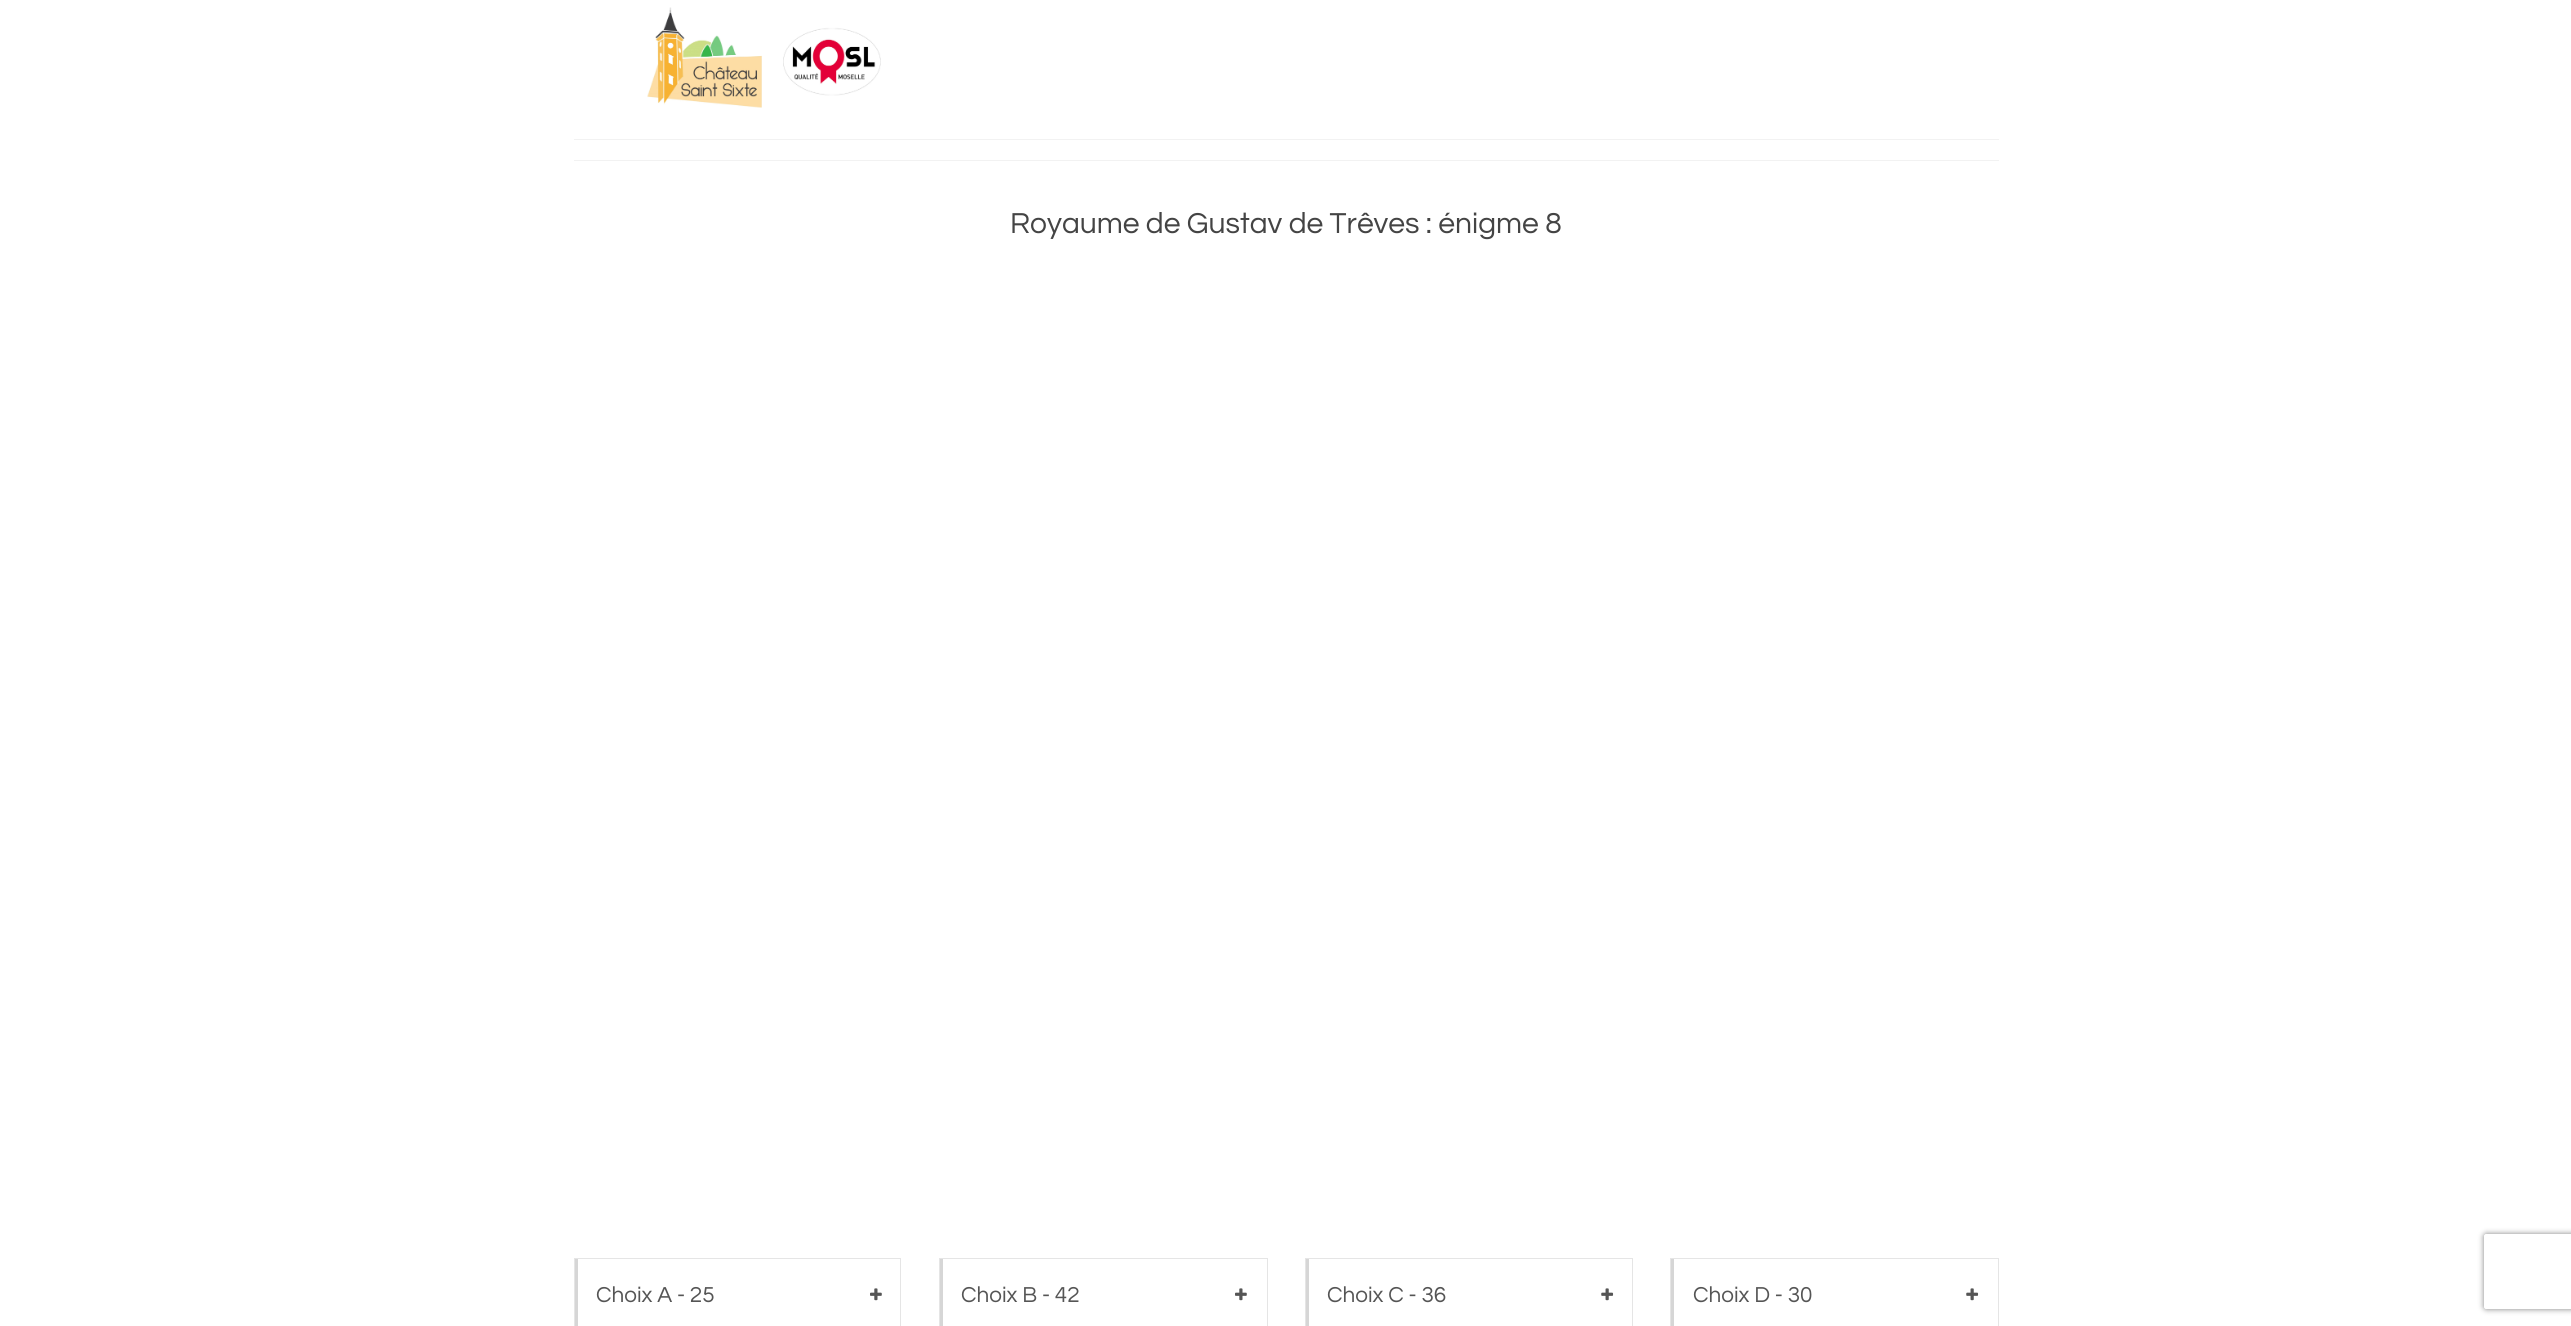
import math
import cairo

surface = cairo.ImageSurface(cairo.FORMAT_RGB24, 2571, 1326)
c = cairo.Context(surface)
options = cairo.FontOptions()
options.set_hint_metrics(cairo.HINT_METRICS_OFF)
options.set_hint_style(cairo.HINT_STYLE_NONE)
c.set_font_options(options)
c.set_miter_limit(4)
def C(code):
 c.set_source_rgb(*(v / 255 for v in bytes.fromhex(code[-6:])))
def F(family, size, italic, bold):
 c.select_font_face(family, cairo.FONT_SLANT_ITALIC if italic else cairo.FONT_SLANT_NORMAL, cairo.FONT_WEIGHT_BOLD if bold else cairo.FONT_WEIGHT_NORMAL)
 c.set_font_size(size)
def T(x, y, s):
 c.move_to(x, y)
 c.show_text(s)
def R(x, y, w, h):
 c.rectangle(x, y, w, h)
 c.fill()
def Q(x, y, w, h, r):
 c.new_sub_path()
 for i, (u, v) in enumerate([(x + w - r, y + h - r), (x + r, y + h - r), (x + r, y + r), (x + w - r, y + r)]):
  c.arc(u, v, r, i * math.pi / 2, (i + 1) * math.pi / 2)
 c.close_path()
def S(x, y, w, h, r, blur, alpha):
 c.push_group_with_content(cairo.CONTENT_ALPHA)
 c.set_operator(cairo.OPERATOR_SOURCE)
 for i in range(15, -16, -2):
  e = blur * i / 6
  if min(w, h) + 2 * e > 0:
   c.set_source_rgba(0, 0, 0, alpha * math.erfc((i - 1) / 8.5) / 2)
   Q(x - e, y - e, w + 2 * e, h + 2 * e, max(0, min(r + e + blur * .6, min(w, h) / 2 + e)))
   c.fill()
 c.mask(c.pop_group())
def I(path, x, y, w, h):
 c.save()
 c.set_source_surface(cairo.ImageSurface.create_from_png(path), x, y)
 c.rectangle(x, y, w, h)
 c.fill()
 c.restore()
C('ffffff')
c.paint()
I('1.png',647,7,234,101)
C('f2f2f2')
R(574,139,1425,1)
R(574,160,1425,1)
F('Questrial',30,0,0)
C('444444')
T(1010,233,'Royaume de Gustav de Trêves : énigme 8')
c.rectangle(574.5,1258.5,326,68)
C('e5e5e5')
c.set_line_width(1)
c.stroke()
C('d6d6d6')
R(575,1259,3,67)
F('Questrial',22.5,0,0)
C('555555')
T(596,1302,'Choix A - 25')
I('2.png',870,1288,12,13)
c.rectangle(939.5,1258.5,328,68)
C('e5e5e5')
c.stroke()
C('d6d6d6')
R(940,1259,3,67)
C('555555')
T(961,1302,'Choix B - 42')
I('2.png',1235,1288,12,13)
c.rectangle(1305.5,1258.5,327,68)
C('e5e5e5')
c.stroke()
C('d6d6d6')
R(1306,1259,3,67)
C('555555')
T(1327,1302,'Choix C - 36')
I('3.png',1601,1288,13,13)
c.rectangle(1670.5,1258.5,328,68)
C('e5e5e5')
c.stroke()
C('d6d6d6')
R(1671,1259,3,67)
C('555555')
T(1693,1302,'Choix D - 30')
I('3.png',1966,1288,13,13)
c.save()
c.set_fill_rule(cairo.FILL_RULE_EVEN_ODD)
c.new_path()
c.move_to(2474,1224)
c.line_to(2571,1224)
c.line_to(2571,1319)
c.line_to(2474,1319)
c.close_path()
c.move_to(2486.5,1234)
c.line_to(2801.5,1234)
c.curve_to(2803,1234,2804,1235,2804,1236.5)
c.line_to(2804,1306.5)
c.curve_to(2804,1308,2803,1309,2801.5,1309)
c.line_to(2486.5,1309)
c.curve_to(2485,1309,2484,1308,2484,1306.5)
c.line_to(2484,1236.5)
c.curve_to(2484,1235,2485,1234,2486.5,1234)
c.close_path()
c.clip()
C('808080')
S(2484,1234,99,75,2.5,3,1)
c.restore()
surface.write_to_png('o.png')
